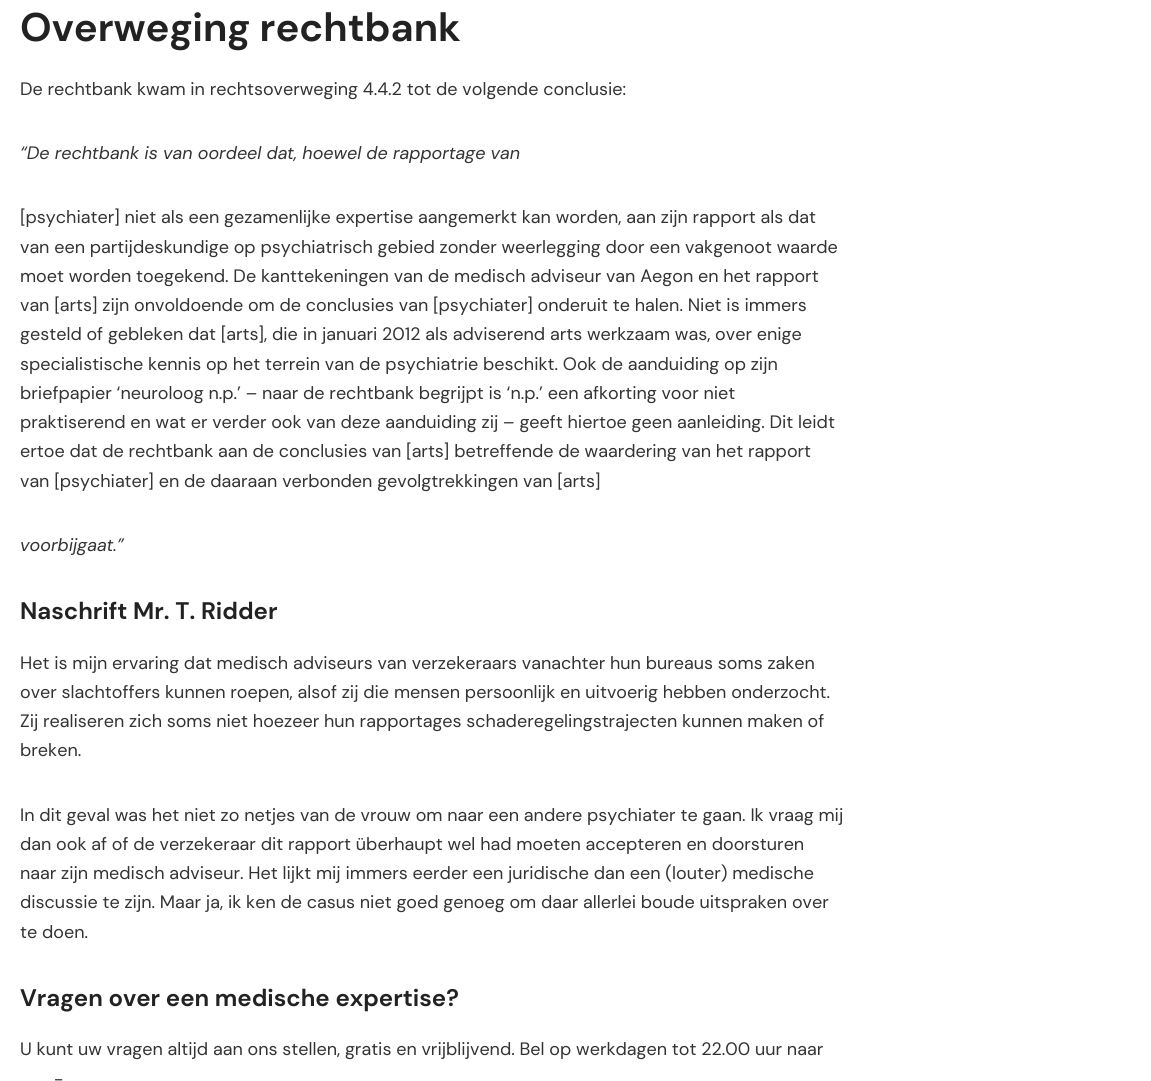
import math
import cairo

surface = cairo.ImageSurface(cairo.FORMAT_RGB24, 1151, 1081)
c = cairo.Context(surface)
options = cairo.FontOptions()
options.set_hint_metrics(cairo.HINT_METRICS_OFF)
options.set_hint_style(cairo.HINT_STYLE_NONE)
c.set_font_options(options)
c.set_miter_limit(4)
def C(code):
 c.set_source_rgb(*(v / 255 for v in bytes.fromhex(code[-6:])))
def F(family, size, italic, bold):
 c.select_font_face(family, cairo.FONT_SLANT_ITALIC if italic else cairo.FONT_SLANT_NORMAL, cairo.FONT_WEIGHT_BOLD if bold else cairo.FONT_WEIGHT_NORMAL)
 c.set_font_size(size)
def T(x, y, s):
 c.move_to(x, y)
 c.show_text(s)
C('ffffff')
c.paint()
F('DM Sans',40,0,1)
C('222222')
T(20,41,'Overweging rechtbank')
F('DM Sans',18,0,0)
C('333333')
T(20,95,'De rechtbank kwam in rechtsoverweging 4.4.2 tot de volgende conclusie:')
F('DM Sans',18,1,0)
T(20,159,'“De rechtbank is van oordeel dat, hoewel de rapportage van')
F('DM Sans',18,0,0)
T(20,223,'[psychiater] niet als een gezamenlijke expertise aangemerkt kan worden, aan zijn rapport als dat')
T(20,253,'van een partijdeskundige op psychiatrisch gebied zonder weerlegging door een vakgenoot waarde')
T(20,282,'moet worden toegekend. De kanttekeningen van de medisch adviseur van Aegon en het rapport')
T(20,311,'van [arts] zijn onvoldoende om de conclusies van [psychiater] onderuit te halen. Niet is immers')
T(20,340,'gesteld of gebleken dat [arts], die in januari 2012 als adviserend arts werkzaam was, over enige')
T(20,370,'specialistische kennis op het terrein van de psychiatrie beschikt. Ook de aanduiding op zijn')
T(20,399,'briefpapier ‘neuroloog n.p.’ – naar de rechtbank begrijpt is ‘n.p.’ een afkorting voor niet')
T(20,428,'praktiserend en wat er verder ook van deze aanduiding zij – geeft hiertoe geen aanleiding. Dit leidt')
T(20,457,'ertoe dat de rechtbank aan de conclusies van [arts] betreffende de waardering van het rapport')
T(20,487,'van [psychiater] en de daaraan verbonden gevolgtrekkingen van [arts]')
F('DM Sans',18,1,0)
T(20,551,'voorbijgaat.”')
F('DM Sans',24,0,1)
C('222222')
T(20,619,'Naschrift Mr. T. Ridder')
F('DM Sans',18,0,0)
C('333333')
T(20,669,'Het is mijn ervaring dat medisch adviseurs van verzekeraars vanachter hun bureaus soms zaken')
T(20,698,'over slachtoffers kunnen roepen, alsof zij die mensen persoonlijk en uitvoerig hebben onderzocht.')
T(20,727,'Zij realiseren zich soms niet hoezeer hun rapportages schaderegelingstrajecten kunnen maken of')
T(20,756,'breken.')
T(20,821,'In dit geval was het niet zo netjes van de vrouw om naar een andere psychiater te gaan. Ik vraag mij')
T(20,850,'dan ook af of de verzekeraar dit rapport überhaupt wel had moeten accepteren en doorsturen')
T(20,879,'naar zijn medisch adviseur. Het lijkt mij immers eerder een juridische dan een (louter) medische')
T(20,908,'discussie te zijn. Maar ja, ik ken de casus niet goed genoeg om daar allerlei boude uitspraken over')
T(20,938,'te doen.')
F('DM Sans',24,0,1)
C('222222')
T(20,1006,'Vragen over een medische expertise?')
F('DM Sans',18,0,0)
C('333333')
T(20,1055,'U kunt uw vragen altijd aan ons stellen, gratis en vrijblijvend. Bel op werkdagen tot 22.00 uur naar')
T(54,1085,'-')
surface.write_to_png('o.png')
